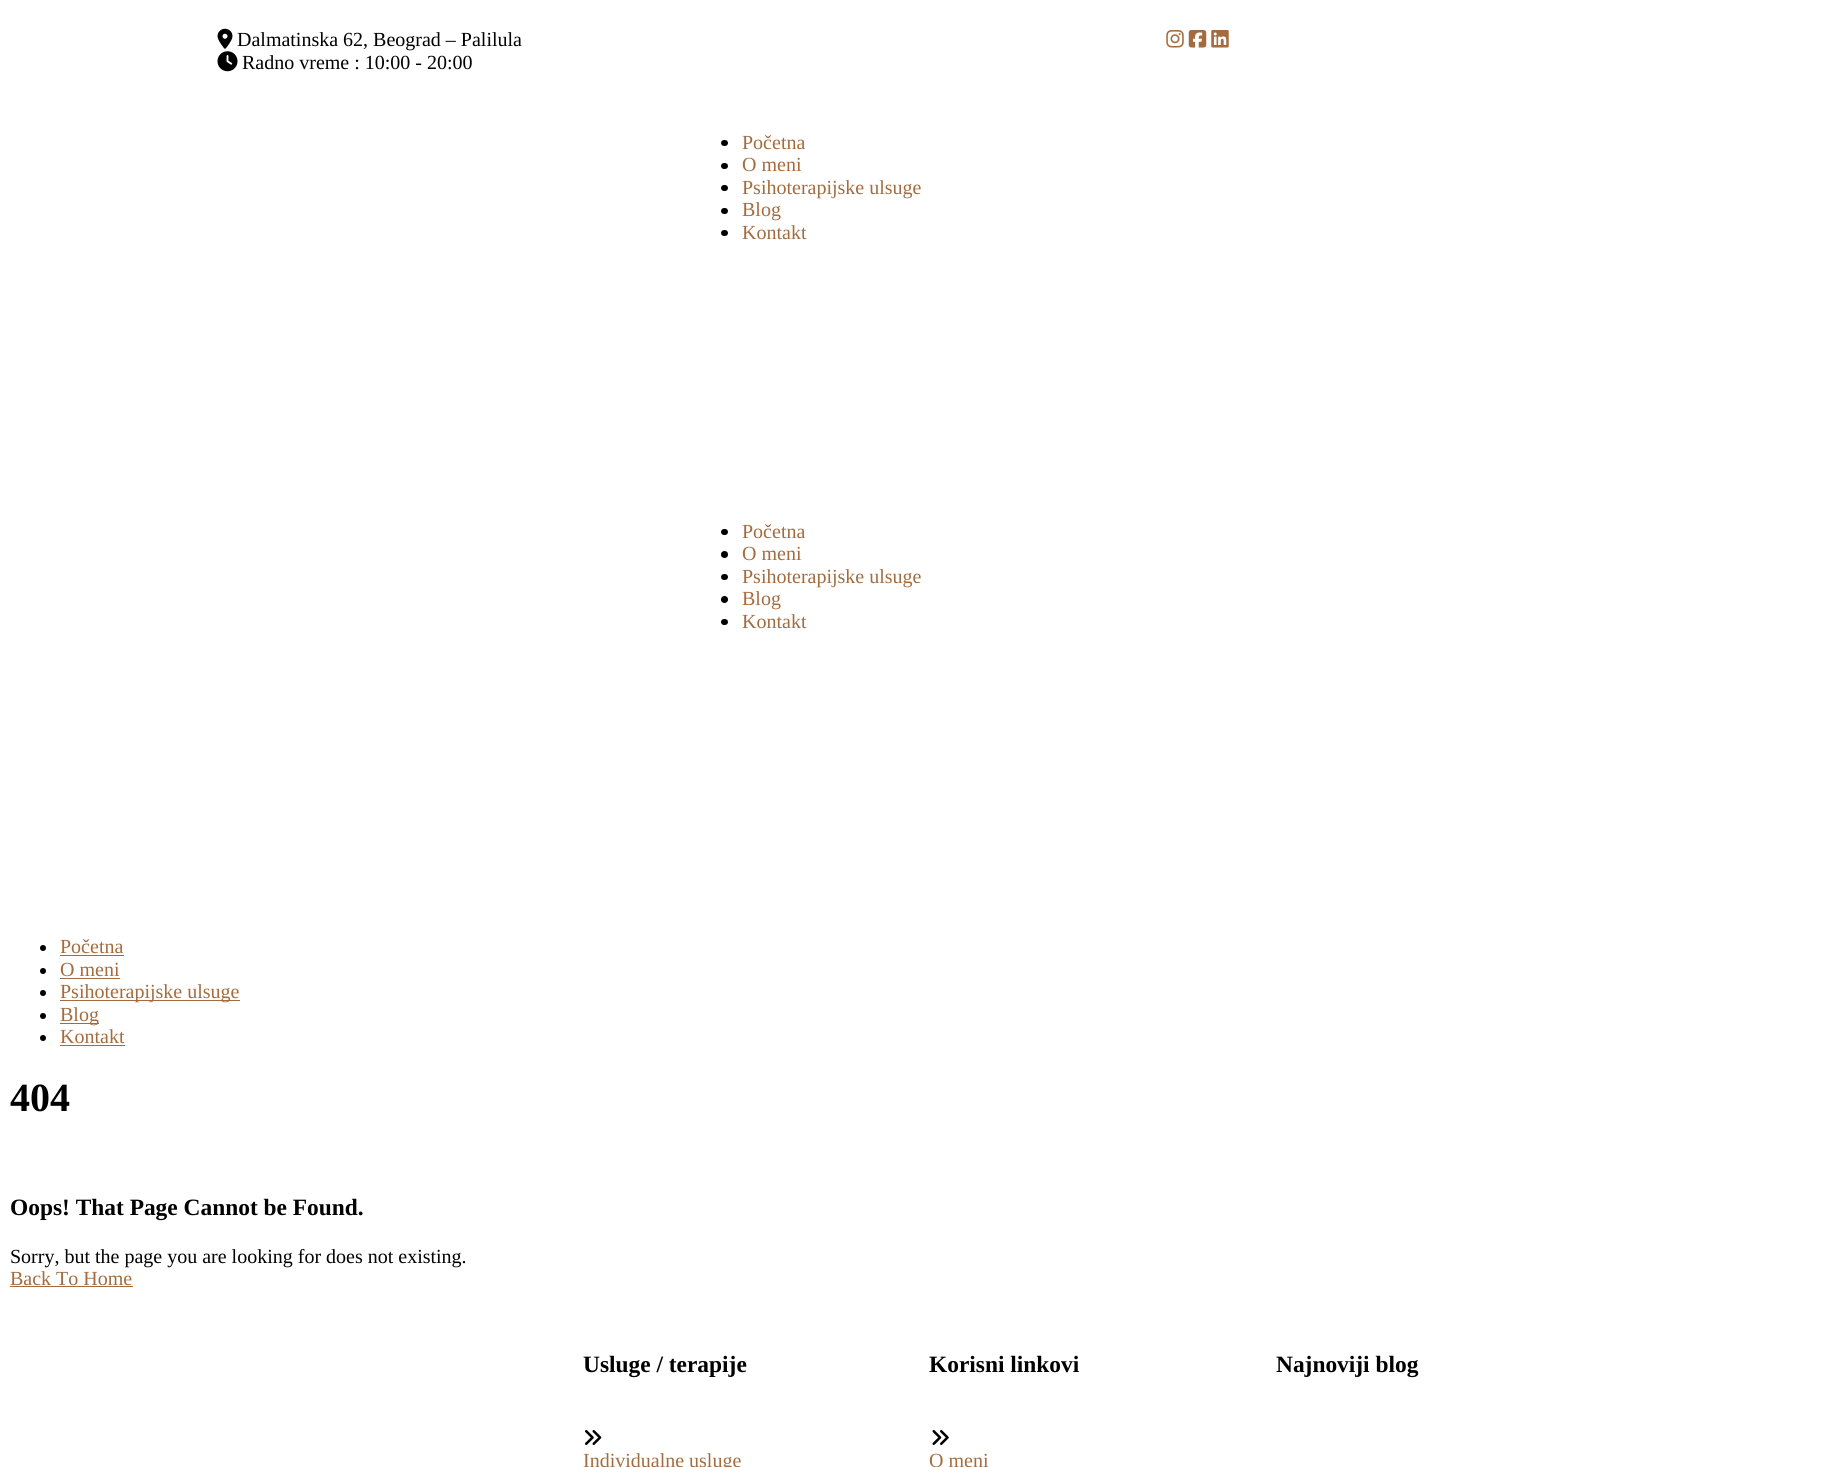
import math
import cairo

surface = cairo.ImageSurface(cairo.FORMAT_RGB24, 1821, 1467)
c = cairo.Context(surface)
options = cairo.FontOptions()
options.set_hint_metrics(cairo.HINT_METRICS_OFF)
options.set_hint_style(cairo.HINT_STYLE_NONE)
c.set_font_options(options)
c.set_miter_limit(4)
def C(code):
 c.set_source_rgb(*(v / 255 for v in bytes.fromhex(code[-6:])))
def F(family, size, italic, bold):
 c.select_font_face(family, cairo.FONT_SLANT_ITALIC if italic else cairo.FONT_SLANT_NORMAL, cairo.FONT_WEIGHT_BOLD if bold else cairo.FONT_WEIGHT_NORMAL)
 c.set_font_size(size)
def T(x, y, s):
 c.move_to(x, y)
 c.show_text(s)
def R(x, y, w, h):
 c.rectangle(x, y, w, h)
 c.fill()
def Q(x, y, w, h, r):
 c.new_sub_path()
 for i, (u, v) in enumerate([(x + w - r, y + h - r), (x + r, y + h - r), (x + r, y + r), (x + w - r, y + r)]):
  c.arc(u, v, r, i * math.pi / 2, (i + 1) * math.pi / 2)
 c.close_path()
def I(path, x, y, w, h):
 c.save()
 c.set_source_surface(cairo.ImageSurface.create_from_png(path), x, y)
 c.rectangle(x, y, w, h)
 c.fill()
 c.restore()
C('ffffff')
c.paint()
I('1.png',217,28,16,21)
F('Liberation Serif',20,0,0)
C('000000')
T(237,46,'Dalmatinska 62, Beograd – Palilula')
I('2.png',217,51,21,21)
T(242,69,'Radno vreme : 10:00 - 20:00')
I('3.png',1166,30,18,18)
I('4.png',1188,30,19,18)
I('5.png',1211,30,18,18)
Q(721,140,7,6,3)
c.fill()
C('a46c3e')
T(742,149,'Početna')
C('000000')
Q(721,163,7,6,3)
c.fill()
C('a46c3e')
T(742,171,'O meni')
C('000000')
Q(721,185,7,6,3)
c.fill()
C('a46c3e')
T(742,194,'Psihoterapijske ulsuge')
C('000000')
Q(721,208,7,6,3)
c.fill()
C('a46c3e')
T(742,216,'Blog')
C('000000')
Q(721,230,7,6,3)
c.fill()
C('a46c3e')
T(742,239,'Kontakt')
C('000000')
Q(721,529,7,6,3)
c.fill()
C('a46c3e')
T(742,538,'Početna')
C('000000')
c.new_path()
c.arc(724.5,554.5,3.5,0,2 * math.pi)
c.fill()
C('a46c3e')
T(742,560,'O meni')
C('000000')
Q(721,574,7,6,3)
c.fill()
C('a46c3e')
T(742,583,'Psihoterapijske ulsuge')
C('000000')
c.new_path()
c.arc(724.5,599.5,3.5,0,2 * math.pi)
c.fill()
C('a46c3e')
T(742,605,'Blog')
C('000000')
Q(721,619,7,6,3)
c.fill()
C('a46c3e')
T(742,628,'Kontakt')
C('000000')
c.new_path()
c.arc(43,948,3,0,2 * math.pi)
c.fill()
C('a46c3e')
T(60,953,'Početna')
R(60,955,64,1)
C('000000')
c.new_path()
c.arc(43,971,3,0,2 * math.pi)
c.fill()
C('a46c3e')
T(60,976,'O meni')
R(60,978,60,1)
C('000000')
c.new_path()
c.arc(43,993,3,0,2 * math.pi)
c.fill()
C('a46c3e')
R(60,1000,180,1)
T(60,998,'Psihoterapijske ulsuge')
C('000000')
c.new_path()
c.arc(43,1016,3,0,2 * math.pi)
c.fill()
C('a46c3e')
R(60,1023,39,1)
T(60,1021,'Blog')
C('000000')
c.new_path()
c.arc(43,1038,3,0,2 * math.pi)
c.fill()
C('a46c3e')
T(60,1043,'Kontakt')
R(60,1045,65,1)
F('Liberation Serif',40,0,1)
C('000000')
T(10,1111,'404')
F('Liberation Serif',23.4,0,1)
T(10,1215,'Oops! That Page Cannot be Found.')
F('Liberation Serif',20,0,0)
T(10,1263,'Sorry, but the page you are looking for does not existing.')
C('a46c3e')
T(10,1285,'Back To Home')
R(10,1286,123,1)
F('Liberation Serif',23.4,0,1)
C('000000')
T(583,1372,'Usluge / terapije')
I('6.png',585,1430,17,15)
F('Liberation Serif',20,0,0)
C('a46c3e')
T(583,1467,'Individualne usluge')
F('Liberation Serif',23.4,0,1)
C('000000')
T(929,1372,'Korisni linkovi')
I('7.png',932,1430,17,15)
F('Liberation Serif',20,0,0)
C('a46c3e')
T(929,1467,'O meni')
F('Liberation Serif',23.4,0,1)
C('000000')
T(1276,1372,'Najnoviji blog')
surface.write_to_png('o.png')
